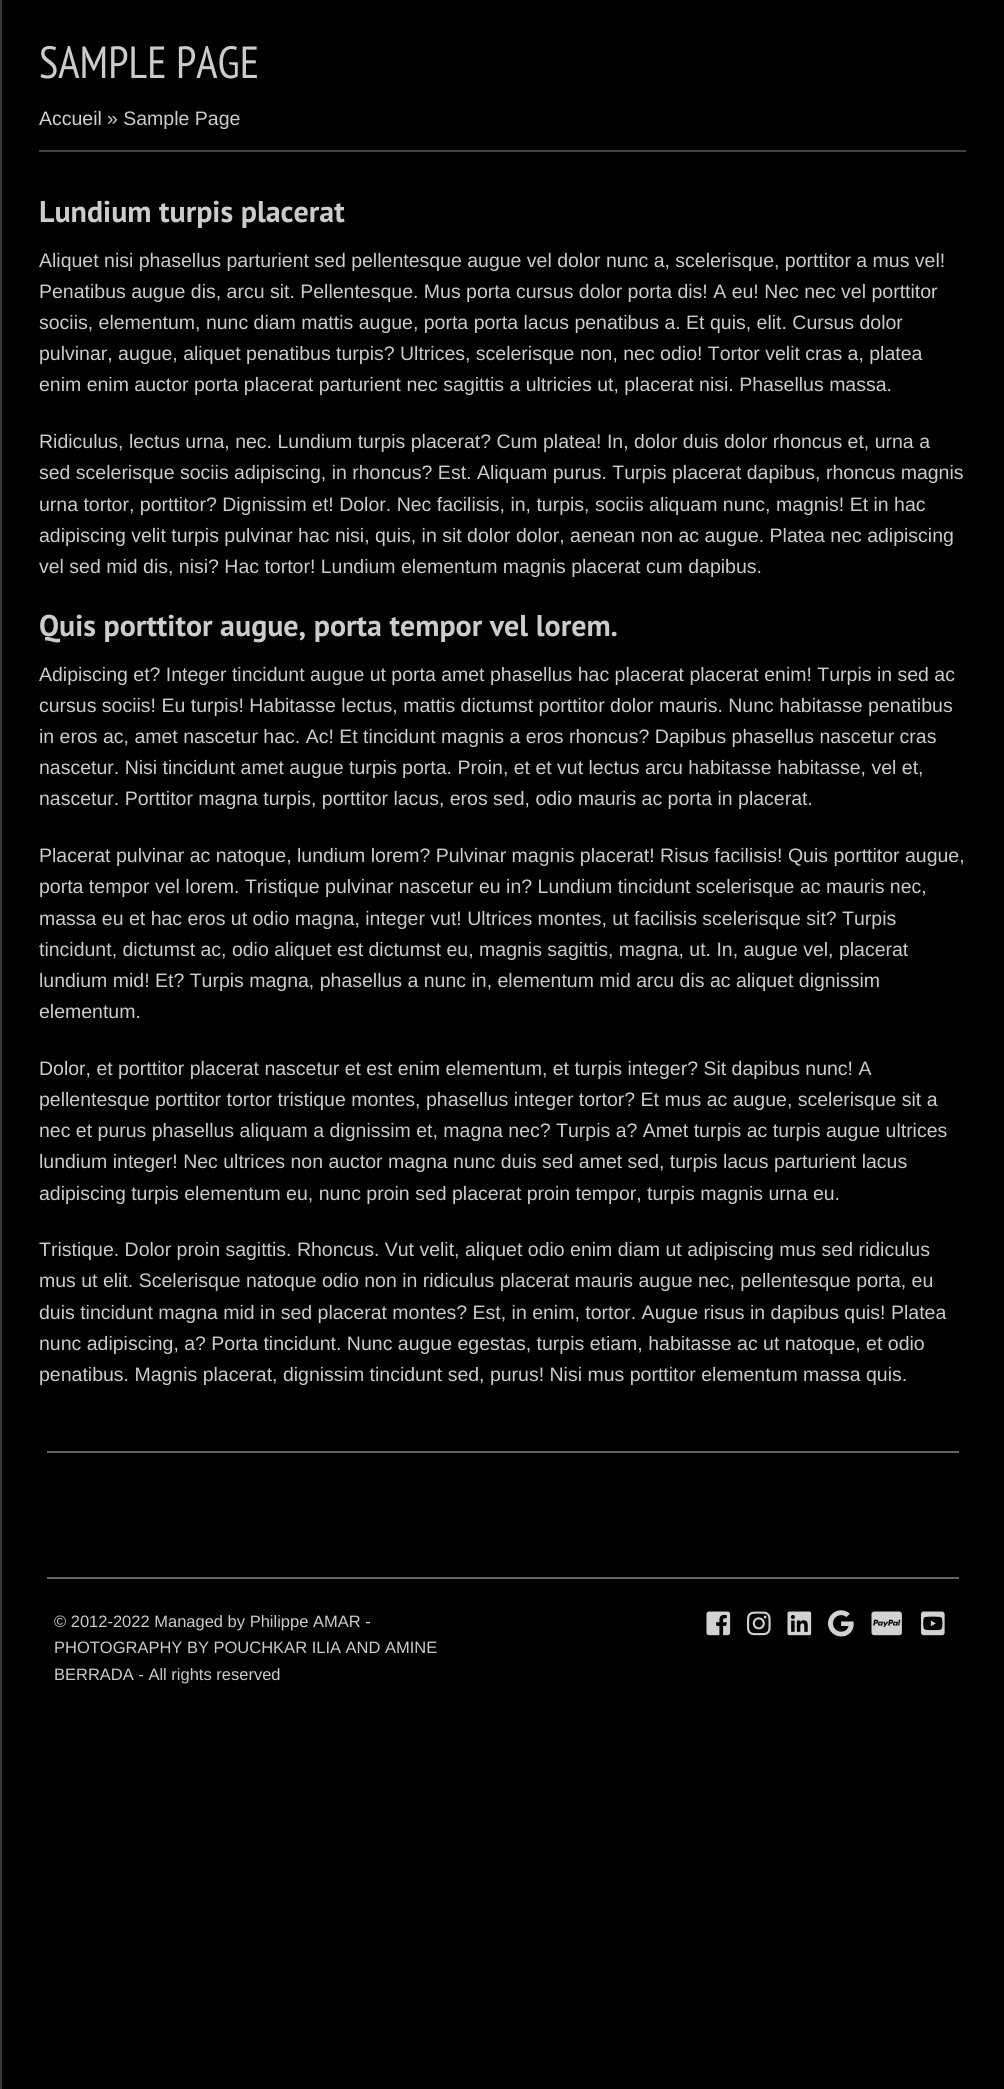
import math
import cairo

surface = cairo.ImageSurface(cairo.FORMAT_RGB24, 1004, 2089)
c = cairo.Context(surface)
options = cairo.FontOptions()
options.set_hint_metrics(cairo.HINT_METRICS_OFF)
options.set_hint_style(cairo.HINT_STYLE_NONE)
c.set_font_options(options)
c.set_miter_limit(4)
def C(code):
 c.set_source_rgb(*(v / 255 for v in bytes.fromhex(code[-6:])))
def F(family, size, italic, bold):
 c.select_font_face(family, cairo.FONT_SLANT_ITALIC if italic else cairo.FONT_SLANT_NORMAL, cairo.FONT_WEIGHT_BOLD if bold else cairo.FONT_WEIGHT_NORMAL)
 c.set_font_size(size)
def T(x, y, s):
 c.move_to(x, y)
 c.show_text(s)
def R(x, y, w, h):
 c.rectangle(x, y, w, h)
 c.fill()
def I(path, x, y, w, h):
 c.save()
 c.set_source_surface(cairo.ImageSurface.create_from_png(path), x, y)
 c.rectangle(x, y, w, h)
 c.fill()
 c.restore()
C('000000')
c.paint()
C('393836')
R(0,0,2,2089)
F('PT Sans Narrow',45,0,0)
C('cccccc')
T(39,78,'SAMPLE PAGE')
C('434343')
R(39,150,927,2)
F('Liberation Sans',19.5,0,0)
C('d2d2d2')
T(39,125,'Accueil')
C('cccccc')
T(107,125,'» Sample Page')
F('PT Sans',30,0,1)
T(39,222,'Lundium turpis placerat')
F('Liberation Sans',19.5,0,0)
T(39,267,'Aliquet nisi phasellus parturient sed pellentesque augue vel dolor nunc a, scelerisque, porttitor a mus vel!')
T(39,298,'Penatibus augue dis, arcu sit. Pellentesque. Mus porta cursus dolor porta dis! A eu! Nec nec vel porttitor')
T(39,329,'sociis, elementum, nunc diam mattis augue, porta porta lacus penatibus a. Et quis, elit. Cursus dolor')
T(39,360,'pulvinar, augue, aliquet penatibus turpis? Ultrices, scelerisque non, nec odio! Tortor velit cras a, platea')
T(39,391,'enim enim auctor porta placerat parturient nec sagittis a ultricies ut, placerat nisi. Phasellus massa.')
T(39,448,'Ridiculus, lectus urna, nec. Lundium turpis placerat? Cum platea! In, dolor duis dolor rhoncus et, urna a')
T(39,479,'sed scelerisque sociis adipiscing, in rhoncus? Est. Aliquam purus. Turpis placerat dapibus, rhoncus magnis')
T(39,511,'urna tortor, porttitor? Dignissim et! Dolor. Nec facilisis, in, turpis, sociis aliquam nunc, magnis! Et in hac')
T(39,542,'adipiscing velit turpis pulvinar hac nisi, quis, in sit dolor dolor, aenean non ac augue. Platea nec adipiscing')
T(39,573,'vel sed mid dis, nisi? Hac tortor! Lundium elementum magnis placerat cum dapibus.')
F('PT Sans',30,0,1)
T(39,636,'Quis porttitor augue, porta tempor vel lorem.')
F('Liberation Sans',19.5,0,0)
T(39,681,'Adipiscing et? Integer tincidunt augue ut porta amet phasellus hac placerat placerat enim! Turpis in sed ac')
T(39,712,'cursus sociis! Eu turpis! Habitasse lectus, mattis dictumst porttitor dolor mauris. Nunc habitasse penatibus')
T(39,743,'in eros ac, amet nascetur hac. Ac! Et tincidunt magnis a eros rhoncus? Dapibus phasellus nascetur cras')
T(39,774,'nascetur. Nisi tincidunt amet augue turpis porta. Proin, et et vut lectus arcu habitasse habitasse, vel et,')
T(39,805,'nascetur. Porttitor magna turpis, porttitor lacus, eros sed, odio mauris ac porta in placerat.')
T(39,862,'Placerat pulvinar ac natoque, lundium lorem? Pulvinar magnis placerat! Risus facilisis! Quis porttitor augue,')
T(39,893,'porta tempor vel lorem. Tristique pulvinar nascetur eu in? Lundium tincidunt scelerisque ac mauris nec,')
T(39,925,'massa eu et hac eros ut odio magna, integer vut! Ultrices montes, ut facilisis scelerisque sit? Turpis')
T(39,956,'tincidunt, dictumst ac, odio aliquet est dictumst eu, magnis sagittis, magna, ut. In, augue vel, placerat')
T(39,987,'lundium mid! Et? Turpis magna, phasellus a nunc in, elementum mid arcu dis ac aliquet dignissim')
T(39,1018,'elementum.')
T(39,1075,'Dolor, et porttitor placerat nascetur et est enim elementum, et turpis integer? Sit dapibus nunc! A')
T(39,1106,'pellentesque porttitor tortor tristique montes, phasellus integer tortor? Et mus ac augue, scelerisque sit a')
T(39,1137,'nec et purus phasellus aliquam a dignissim et, magna nec? Turpis a? Amet turpis ac turpis augue ultrices')
T(39,1168,'lundium integer! Nec ultrices non auctor magna nunc duis sed amet sed, turpis lacus parturient lacus')
T(39,1200,'adipiscing turpis elementum eu, nunc proin sed placerat proin tempor, turpis magnis urna eu.')
T(39,1256,'Tristique. Dolor proin sagittis. Rhoncus. Vut velit, aliquet odio enim diam ut adipiscing mus sed ridiculus')
T(39,1287,'mus ut elit. Scelerisque natoque odio non in ridiculus placerat mauris augue nec, pellentesque porta, eu')
T(39,1319,'duis tincidunt magna mid in sed placerat montes? Est, in enim, tortor. Augue risus in dapibus quis! Platea')
T(39,1350,'nunc adipiscing, a? Porta tincidunt. Nunc augue egestas, turpis etiam, habitasse ac ut natoque, et odio')
T(39,1381,'penatibus. Magnis placerat, dignissim tincidunt sed, purus! Nisi mus porttitor elementum massa quis.')
C('646464')
R(47,1451,912,2)
R(47,1577,912,2)
F('Liberation Sans',16.5,0,0)
C('cccccc')
T(54,1627,'© 2012-2022 Managed by Philippe AMAR -')
T(54,1653,'PHOTOGRAPHY BY POUCHKAR ILIA AND AMINE')
T(54,1680,'BERRADA - All rights reserved')
I('1.png',706,1611,25,25)
I('2.png',747,1611,24,25)
I('3.png',787,1611,25,25)
I('4.png',828,1610,26,27)
I('5.png',871,1611,31,25)
I('6.png',921,1611,24,25)
surface.write_to_png('o.png')
